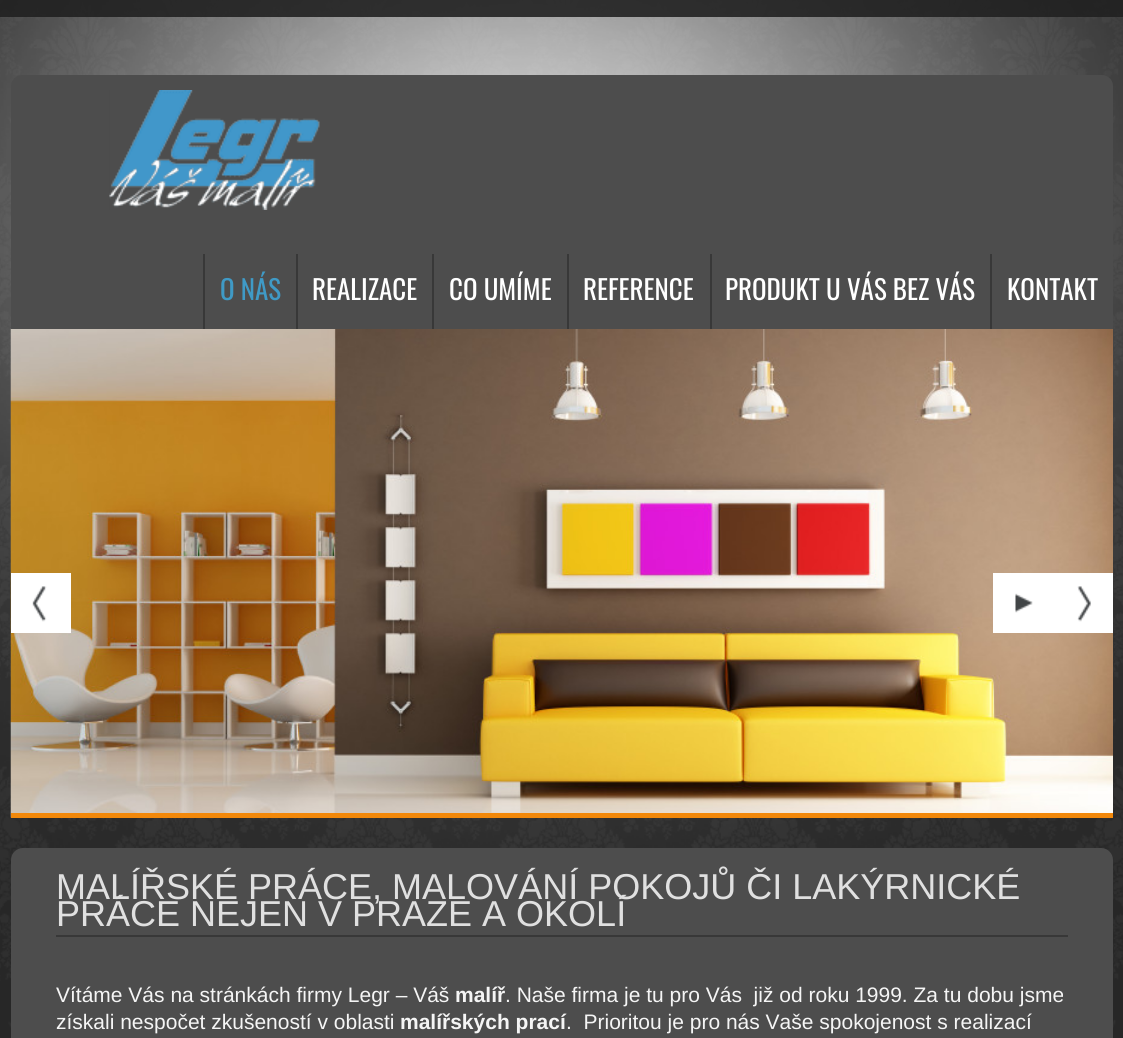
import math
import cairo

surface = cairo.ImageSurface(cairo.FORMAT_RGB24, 1123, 1038)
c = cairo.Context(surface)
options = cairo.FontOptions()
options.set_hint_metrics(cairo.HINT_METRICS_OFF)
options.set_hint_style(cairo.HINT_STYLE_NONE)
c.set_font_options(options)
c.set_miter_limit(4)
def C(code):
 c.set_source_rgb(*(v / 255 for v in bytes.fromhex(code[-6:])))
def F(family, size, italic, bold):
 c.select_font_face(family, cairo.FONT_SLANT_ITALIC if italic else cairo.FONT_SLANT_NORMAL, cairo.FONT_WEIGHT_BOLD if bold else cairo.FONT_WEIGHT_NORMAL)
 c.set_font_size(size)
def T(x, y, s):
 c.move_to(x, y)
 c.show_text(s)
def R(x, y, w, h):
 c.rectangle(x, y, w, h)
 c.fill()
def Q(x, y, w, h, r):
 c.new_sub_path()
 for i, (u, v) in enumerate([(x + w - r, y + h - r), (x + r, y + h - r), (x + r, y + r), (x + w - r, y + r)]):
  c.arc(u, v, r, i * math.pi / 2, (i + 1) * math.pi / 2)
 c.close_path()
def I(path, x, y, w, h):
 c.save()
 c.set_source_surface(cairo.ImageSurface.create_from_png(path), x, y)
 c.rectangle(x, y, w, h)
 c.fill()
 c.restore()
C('ffffff')
c.paint()
I('1.png',0,0,1123,1038)
I('2.png',0,0,1123,848)
c.set_source_rgba(0.122,0.122,0.122,0.88)
R(0,0,1123,17)
I('4.png',10,328,1103,490)
C('4d4d4d')
c.new_path()
c.move_to(22,75)
c.line_to(1102,75)
c.curve_to(1108,75,1113,80,1113,86)
c.line_to(1113,329)
c.line_to(11,329)
c.line_to(11,86)
c.curve_to(11,80,16,75,22,75)
c.close_path()
c.fill()
I('3.png',109,90,211,120)
C('383838')
R(203,254,2,75)
F('Oswald',27,0,0)
C('3f9ac6')
T(220,300,'O NÁS')
C('383838')
R(296,254,2,75)
C('ffffff')
T(312,300,'REALIZACE')
C('383838')
R(432,254,2,75)
C('ffffff')
T(449,300,'CO UMÍME')
C('383838')
R(567,254,2,75)
C('ffffff')
T(583,300,'REFERENCE')
C('383838')
R(710,254,2,75)
C('ffffff')
T(725,300,'PRODUKT U VÁS BEZ VÁS')
C('383838')
R(990,254,2,75)
C('ffffff')
T(1007,300,'KONTAKT')
R(11,573,60,60)
I('5.png',32,586,15,36)
R(993,573,120,60)
I('6.png',1015,593,18,20)
I('7.png',1077,586,14,36)
C('f2880a')
R(11,813,1102,5)
C('4d4d4d')
Q(11,848,1102,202,12)
c.fill()
C('383838')
R(56,935,1012,2)
F('Liberation Sans',36,0,0)
C('e0e0e0')
T(56,899,'MALÍŘSKÉ PRÁCE, MALOVÁNÍ POKOJŮ ČI LAKÝRNICKÉ')
T(56,926,'PRÁCE NEJEN V PRAZE A OKOLÍ')
F('Liberation Sans',21,0,0)
C('f5f5f5')
T(56,1002,'Vítáme Vás na stránkách firmy Legr – Váš')
F('Liberation Sans',21,0,1)
T(455,1002,'malíř')
F('Liberation Sans',21,0,0)
T(505,1002,'. Naše firma je tu pro Vás  již od roku 1999. Za tu dobu jsme')
T(56,1029,'získali nespočet zkušeností v oblasti')
F('Liberation Sans',21,0,1)
T(400,1029,'malířských prací')
F('Liberation Sans',21,0,0)
T(566,1029,'.  Prioritou je pro nás Vaše spokojenost s realizací')
surface.write_to_png('o.png')
